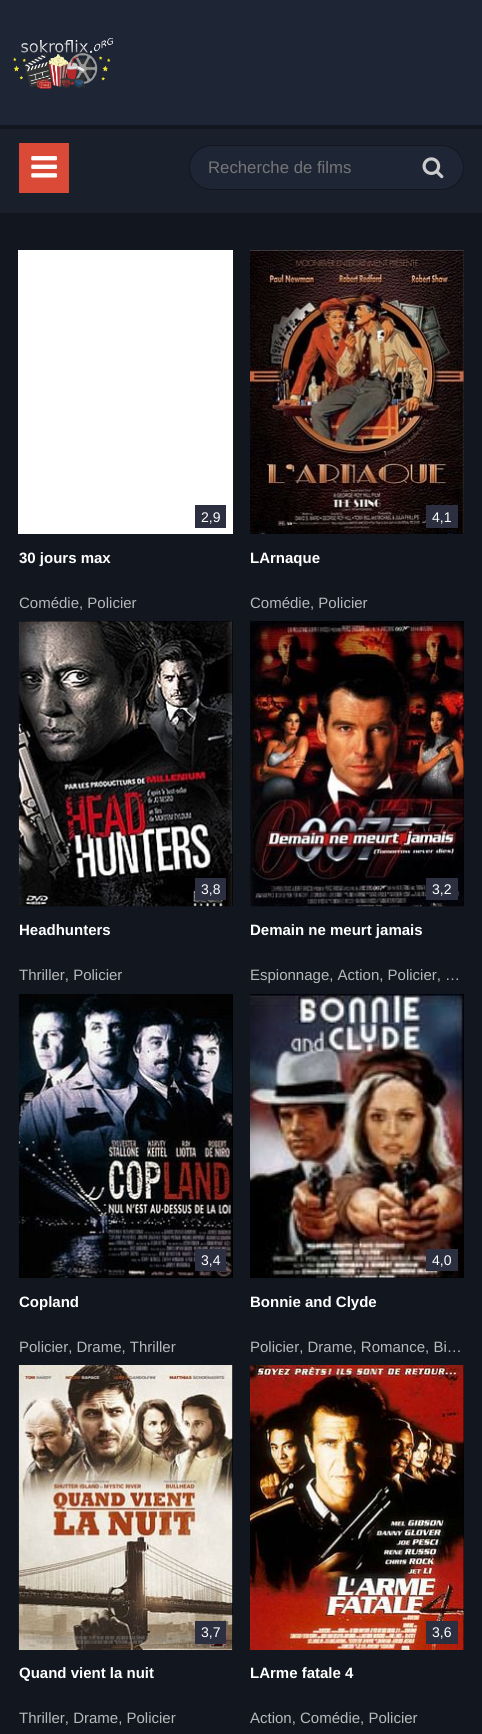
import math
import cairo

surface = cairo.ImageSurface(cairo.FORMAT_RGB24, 482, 1734)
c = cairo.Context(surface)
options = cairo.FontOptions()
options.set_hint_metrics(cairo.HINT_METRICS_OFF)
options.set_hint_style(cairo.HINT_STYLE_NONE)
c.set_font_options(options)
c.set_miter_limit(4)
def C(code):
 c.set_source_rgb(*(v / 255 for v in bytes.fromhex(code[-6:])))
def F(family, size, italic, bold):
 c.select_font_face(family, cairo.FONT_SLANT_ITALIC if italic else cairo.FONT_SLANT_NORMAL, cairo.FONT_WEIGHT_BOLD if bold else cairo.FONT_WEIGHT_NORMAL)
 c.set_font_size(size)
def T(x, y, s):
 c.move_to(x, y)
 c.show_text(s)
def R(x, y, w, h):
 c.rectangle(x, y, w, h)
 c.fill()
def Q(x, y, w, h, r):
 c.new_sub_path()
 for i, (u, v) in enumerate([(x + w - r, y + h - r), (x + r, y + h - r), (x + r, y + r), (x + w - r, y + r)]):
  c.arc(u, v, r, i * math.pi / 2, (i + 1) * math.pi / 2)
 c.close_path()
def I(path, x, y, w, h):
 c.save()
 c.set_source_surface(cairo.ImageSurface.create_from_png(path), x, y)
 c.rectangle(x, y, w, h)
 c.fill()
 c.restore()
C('12161f')
c.paint()
C('1e2535')
R(0,0,482,125)
I('1.png',13,38,100,51)
C('191f2b')
R(0,129,482,84)
C('db4a37')
R(19,143,50,50)
I('2.png',31,156,26,22)
C('1e2535')
Q(189.5,145.5,274,44,22)
c.fill_preserve()
C('12161f')
c.set_line_width(1)
c.stroke()
F('Liberation Sans',16.75,0,0)
C('757575')
T(208,173,'Recherche de films')
I('3.png',422,157,22,22)
C('ffffff')
R(18,250,215,284)
C('2c2f40')
R(195,505,31,23)
F('Liberation Sans',14,0,0)
C('ffffff')
T(201,522,'2,9')
F('Liberation Sans',15,0,1)
T(19,563,'30 jours max')
F('Liberation Sans',15,0,0)
C('b8b9bc')
T(19,608,'Comédie, Policier')
C('000000')
R(250,250,214,284)
I('4.png',250,250,214,284)
C('2c2f40')
R(426,505,32,23)
F('Liberation Sans',14,0,0)
C('ffffff')
T(432,522,'4,1')
F('Liberation Sans',15,0,1)
T(250,563,'LArnaque')
F('Liberation Sans',15,0,0)
C('b8b9bc')
T(250,608,'Comédie, Policier')
C('000000')
R(19,621,214,285)
I('5.png',18,621,215,286)
C('2c2f40')
R(195,878,31,22)
F('Liberation Sans',14,0,0)
C('ffffff')
T(201,894,'3,8')
F('Liberation Sans',15,0,1)
T(19,935,'Headhunters')
F('Liberation Sans',15,0,0)
C('b8b9bc')
T(19,980,'Thriller, Policier')
C('000000')
R(250,621,214,285)
I('6.png',250,621,214,286)
C('2c2f40')
R(426,878,32,22)
F('Liberation Sans',14,0,0)
C('ffffff')
T(432,894,'3,2')
F('Liberation Sans',15,0,1)
T(250,935,'Demain ne meurt jamais')
F('Liberation Sans',15,0,0)
C('b8b9bc')
T(250,980,'Espionnage, Action, Policier, …')
C('000000')
R(19,994,214,284)
I('7.png',18,994,215,284)
C('2c2f40')
R(195,1249,31,22)
F('Liberation Sans',14,0,0)
C('ffffff')
T(201,1265,'3,4')
F('Liberation Sans',15,0,1)
T(19,1307,'Copland')
F('Liberation Sans',15,0,0)
C('b8b9bc')
T(19,1352,'Policier, Drame, Thriller')
C('000000')
R(250,994,214,284)
I('8.png',250,994,214,284)
C('2c2f40')
R(426,1249,32,22)
F('Liberation Sans',14,0,0)
C('ffffff')
T(432,1265,'4,0')
F('Liberation Sans',15,0,1)
T(250,1307,'Bonnie and Clyde')
F('Liberation Sans',15,0,0)
C('b8b9bc')
T(250,1352,'Policier, Drame, Romance, Bi…')
C('000000')
R(232,1365,1,285)
I('9.png',18,1365,215,285)
C('2c2f40')
R(195,1621,31,23)
F('Liberation Sans',14,0,0)
C('ffffff')
T(201,1637,'3,7')
F('Liberation Sans',15,0,1)
T(19,1678,'Quand vient la nuit')
F('Liberation Sans',15,0,0)
C('b8b9bc')
T(19,1723,'Thriller, Drame, Policier')
C('000000')
R(463,1365,1,285)
I('10.png',250,1365,214,285)
C('2c2f40')
R(426,1621,32,23)
F('Liberation Sans',14,0,0)
C('ffffff')
T(432,1637,'3,6')
F('Liberation Sans',15,0,1)
T(250,1678,'LArme fatale 4')
F('Liberation Sans',15,0,0)
C('b8b9bc')
T(250,1723,'Action, Comédie, Policier')
surface.write_to_png('o.png')
